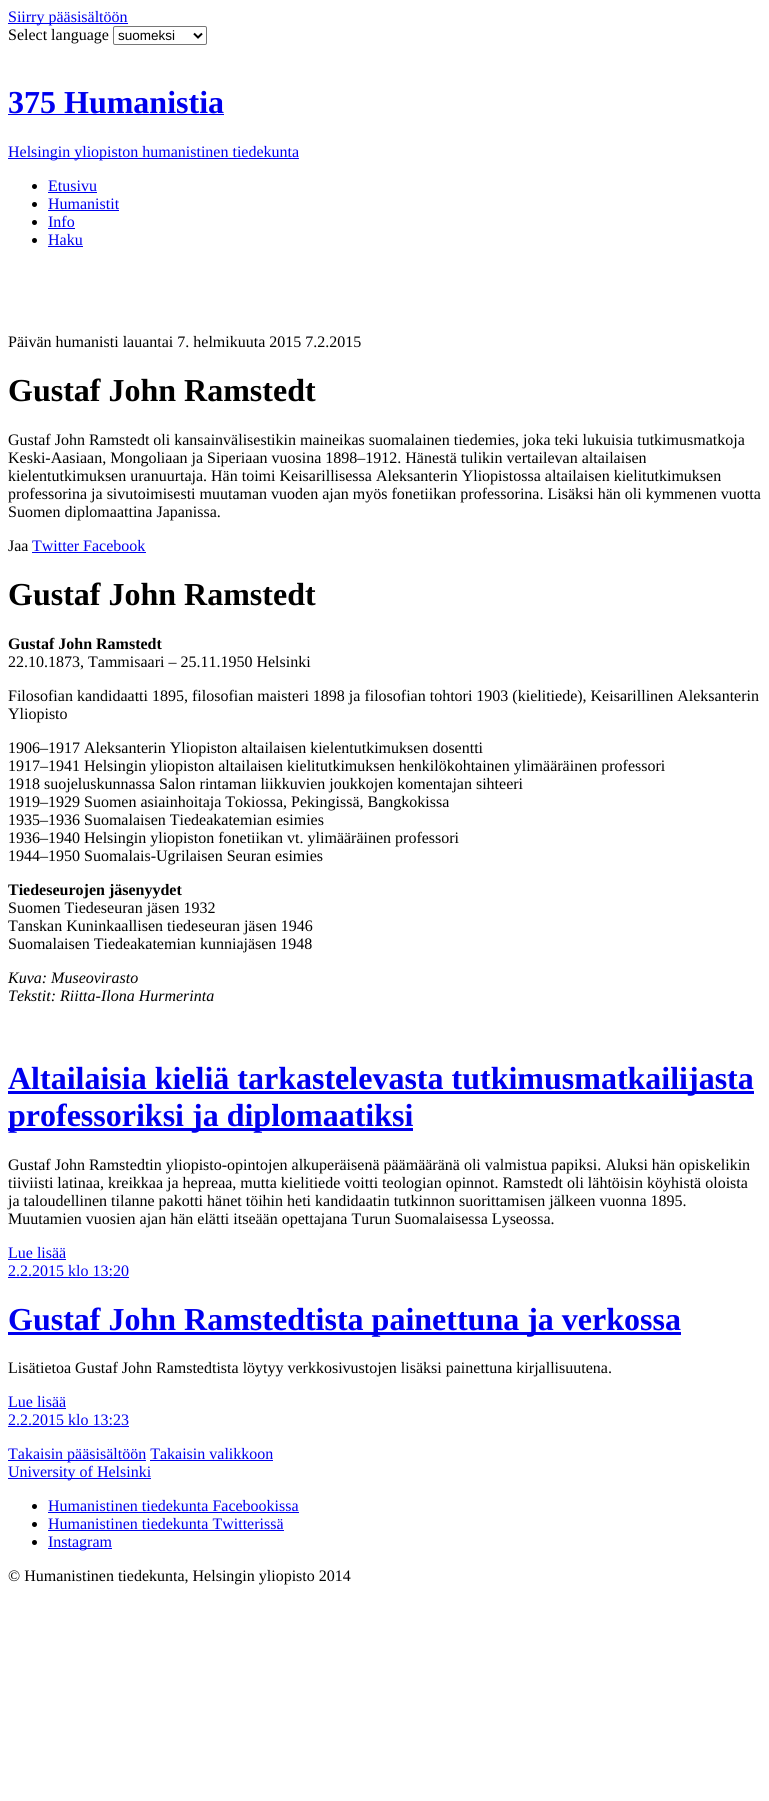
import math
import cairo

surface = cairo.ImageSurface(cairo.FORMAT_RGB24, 769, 1801)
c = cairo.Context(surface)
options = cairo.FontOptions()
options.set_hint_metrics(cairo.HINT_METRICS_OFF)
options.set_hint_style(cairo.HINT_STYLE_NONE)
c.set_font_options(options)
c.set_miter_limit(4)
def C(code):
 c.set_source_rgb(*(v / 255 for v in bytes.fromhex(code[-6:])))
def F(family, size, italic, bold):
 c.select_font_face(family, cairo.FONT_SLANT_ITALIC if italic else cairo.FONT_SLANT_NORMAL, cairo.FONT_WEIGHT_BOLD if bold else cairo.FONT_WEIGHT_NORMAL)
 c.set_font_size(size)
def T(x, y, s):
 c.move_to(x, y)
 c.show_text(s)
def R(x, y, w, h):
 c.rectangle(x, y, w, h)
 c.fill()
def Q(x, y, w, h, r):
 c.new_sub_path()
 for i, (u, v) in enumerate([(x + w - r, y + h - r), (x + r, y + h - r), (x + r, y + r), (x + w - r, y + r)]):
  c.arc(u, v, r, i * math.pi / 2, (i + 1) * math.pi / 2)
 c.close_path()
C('ffffff')
c.paint()
C('0000ee')
R(8,23,120,1)
F('Liberation Serif',16,0,0)
T(8,22,'Siirry pääsisältöön')
C('000000')
T(8,40,'Select language')
Q(113.5,26.5,93,18,1.5)
C('767676')
c.set_line_width(1)
c.stroke()
c.new_path()
c.move_to(194,33.5)
c.line_to(198,37.5)
c.line_to(202,33.5)
C('000000')
c.set_line_width(2)
c.stroke()
F('Liberation Sans',13.5,0,0)
T(118,40,'suomeksi')
F('Liberation Serif',32,0,1)
C('0000ee')
T(8,113,'375 Humanistia')
R(8,114,216,1)
R(8,158,291,1)
F('Liberation Serif',16,0,0)
T(8,157,'Helsingin yliopiston humanistinen tiedekunta')
C('000000')
c.new_path()
c.arc(34.5,186.5,2.5,0,2 * math.pi)
c.fill()
C('0000ee')
T(48,191,'Etusivu')
R(48,192,49,1)
C('000000')
c.new_path()
c.arc(34.5,204.5,2.5,0,2 * math.pi)
c.fill()
C('0000ee')
T(48,209,'Humanistit')
R(48,210,71,1)
C('000000')
c.new_path()
c.arc(34.5,222.5,2.5,0,2 * math.pi)
c.fill()
C('0000ee')
T(48,227,'Info')
R(48,228,27,1)
C('000000')
c.new_path()
c.arc(34.5,240.5,2.5,0,2 * math.pi)
c.fill()
C('0000ee')
T(48,245,'Haku')
R(48,246,35,1)
C('000000')
T(8,347,'Päivän humanisti lauantai 7. helmikuuta 2015 7.2.2015')
F('Liberation Serif',32,0,1)
T(8,401,'Gustaf John Ramstedt')
F('Liberation Serif',16,0,0)
T(8,445,'Gustaf John Ramstedt oli kansainvälisestikin maineikas suomalainen tiedemies, joka teki lukuisia tutkimusmatkoja')
T(8,463,'Keski-Aasiaan, Mongoliaan ja Siperiaan vuosina 1898–1912. Hänestä tulikin vertailevan altailaisen')
T(8,481,'kielentutkimuksen uranuurtaja. Hän toimi Keisarillisessa Aleksanterin Yliopistossa altailaisen kielitutkimuksen')
T(8,499,'professorina ja sivutoimisesti muutaman vuoden ajan myös fonetiikan professorina. Lisäksi hän oli kymmenen vuotta')
T(8,517,'Suomen diplomaattina Japanissa.')
T(8,551,'Jaa')
C('0000ee')
T(32,551,'Twitter Facebook')
R(32,552,114,1)
F('Liberation Serif',32,0,1)
C('000000')
T(8,605,'Gustaf John Ramstedt')
F('Liberation Serif',16,0,1)
T(8,649,'Gustaf John Ramstedt')
F('Liberation Serif',16,0,0)
T(8,667,'22.10.1873, Tammisaari – 25.11.1950 Helsinki')
T(8,701,'Filosofian kandidaatti 1895, filosofian maisteri 1898 ja filosofian tohtori 1903 (kielitiede), Keisarillinen Aleksanterin')
T(8,719,'Yliopisto')
T(8,753,'1906–1917 Aleksanterin Yliopiston altailaisen kielentutkimuksen dosentti')
T(8,771,'1917–1941 Helsingin yliopiston altailaisen kielitutkimuksen henkilökohtainen ylimääräinen professori')
T(8,789,'1918 suojeluskunnassa Salon rintaman liikkuvien joukkojen komentajan sihteeri')
T(8,807,'1919–1929 Suomen asiainhoitaja Tokiossa, Pekingissä, Bangkokissa')
T(8,825,'1935–1936 Suomalaisen Tiedeakatemian esimies')
T(8,843,'1936–1940 Helsingin yliopiston fonetiikan vt. ylimääräinen professori')
T(8,861,'1944–1950 Suomalais-Ugrilaisen Seuran esimies')
F('Liberation Serif',16,0,1)
T(8,895,'Tiedeseurojen jäsenyydet')
F('Liberation Serif',16,0,0)
T(8,913,'Suomen Tiedeseuran jäsen 1932')
T(8,931,'Tanskan Kuninkaallisen tiedeseuran jäsen 1946')
T(8,949,'Suomalaisen Tiedeakatemian kunniajäsen 1948')
F('Liberation Serif',16,1,0)
T(8,983,'Kuva: Museovirasto')
T(8,1001,'Tekstit: Riitta-Ilona Hurmerinta')
C('0000ee')
R(8,1091,746,3)
F('Liberation Serif',32,0,1)
T(8,1089,'Altailaisia kieliä tarkastelevasta tutkimusmatkailijasta')
R(8,1128,405,3)
T(8,1126,'professoriksi ja diplomaatiksi')
F('Liberation Serif',16,0,0)
C('000000')
T(8,1170,'Gustaf John Ramstedtin yliopisto-opintojen alkuperäisenä päämääränä oli valmistua papiksi. Aluksi hän opiskelikin')
T(8,1188,'tiiviisti latinaa, kreikkaa ja hepreaa, mutta kielitiede voitti teologian opinnot. Ramstedt oli lähtöisin köyhistä oloista')
T(8,1206,'ja taloudellinen tilanne pakotti hänet töihin heti kandidaatin tutkinnon suorittamisen jälkeen vuonna 1895.')
T(8,1224,'Muutamien vuosien ajan hän elätti itseään opettajana Turun Suomalaisessa Lyseossa.')
C('0000ee')
T(8,1258,'Lue lisää')
R(8,1259,58,1)
T(8,1276,'2.2.2015 klo 13:20')
R(8,1277,121,1)
R(8,1332,673,3)
F('Liberation Serif',32,0,1)
T(8,1330,'Gustaf John Ramstedtista painettuna ja verkossa')
F('Liberation Serif',16,0,0)
C('000000')
T(8,1373,'Lisätietoa Gustaf John Ramstedtista löytyy verkkosivustojen lisäksi painettuna kirjallisuutena.')
C('0000ee')
T(8,1407,'Lue lisää')
R(8,1408,58,1)
T(8,1425,'2.2.2015 klo 13:23')
R(8,1426,121,1)
R(8,1460,138,1)
T(8,1459,'Takaisin pääsisältöön Takaisin valikkoon')
R(150,1460,123,1)
R(8,1478,143,1)
T(8,1477,'University of Helsinki')
C('000000')
c.new_path()
c.arc(34.5,1506.5,2.5,0,2 * math.pi)
c.fill()
C('0000ee')
T(48,1511,'Humanistinen tiedekunta Facebookissa')
R(48,1512,251,1)
C('000000')
c.new_path()
c.arc(34.5,1524.5,2.5,0,2 * math.pi)
c.fill()
C('0000ee')
T(48,1529,'Humanistinen tiedekunta Twitterissä')
R(48,1530,236,1)
C('000000')
c.new_path()
c.arc(34.5,1542.5,2.5,0,2 * math.pi)
c.fill()
C('0000ee')
R(48,1548,64,1)
T(48,1547,'Instagram')
C('000000')
T(8,1581,'© Humanistinen tiedekunta, Helsingin yliopisto 2014')
surface.write_to_png('o.png')
